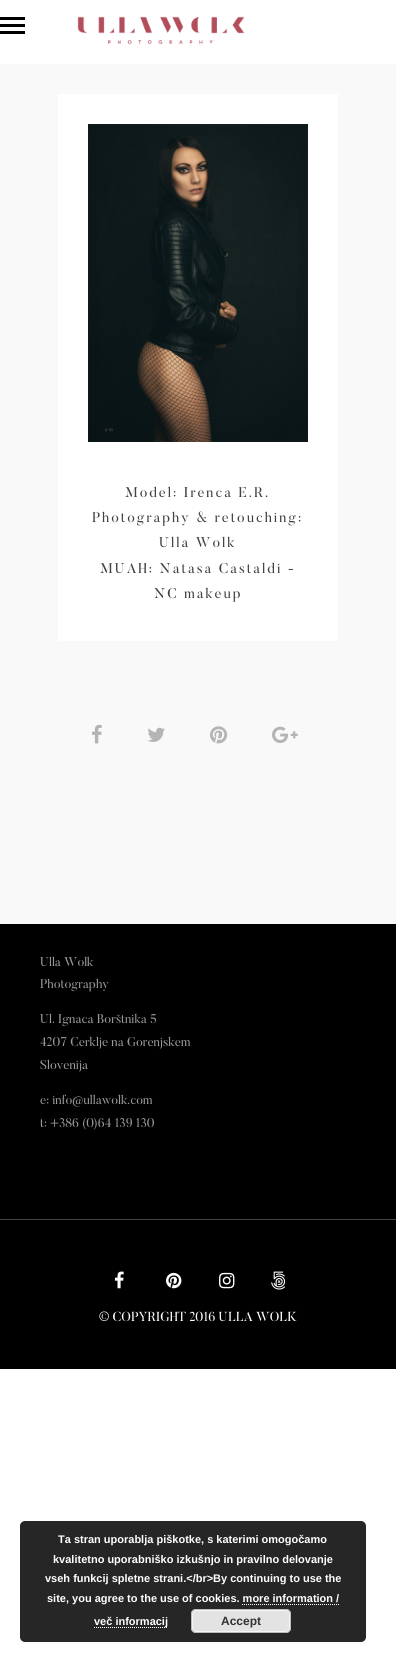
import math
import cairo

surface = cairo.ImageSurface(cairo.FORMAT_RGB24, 396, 1672)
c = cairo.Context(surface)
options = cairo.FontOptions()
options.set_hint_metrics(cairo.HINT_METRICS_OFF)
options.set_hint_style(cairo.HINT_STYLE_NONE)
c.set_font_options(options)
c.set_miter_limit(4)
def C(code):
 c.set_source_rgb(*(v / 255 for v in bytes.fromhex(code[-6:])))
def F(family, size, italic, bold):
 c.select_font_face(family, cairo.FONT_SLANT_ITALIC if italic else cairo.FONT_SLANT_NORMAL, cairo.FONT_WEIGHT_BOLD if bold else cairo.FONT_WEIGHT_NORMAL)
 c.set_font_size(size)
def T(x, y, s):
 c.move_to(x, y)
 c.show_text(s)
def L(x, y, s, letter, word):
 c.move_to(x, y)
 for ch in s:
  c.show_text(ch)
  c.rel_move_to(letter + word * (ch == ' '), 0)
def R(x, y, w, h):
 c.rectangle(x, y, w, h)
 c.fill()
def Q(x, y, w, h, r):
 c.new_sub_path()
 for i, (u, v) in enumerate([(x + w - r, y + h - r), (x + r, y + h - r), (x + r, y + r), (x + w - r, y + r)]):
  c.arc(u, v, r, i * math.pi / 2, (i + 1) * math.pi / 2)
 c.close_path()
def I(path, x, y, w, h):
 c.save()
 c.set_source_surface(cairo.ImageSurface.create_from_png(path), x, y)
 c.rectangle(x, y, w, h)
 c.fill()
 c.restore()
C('ffffff')
c.paint()
C('000000')
R(0,17,25,3)
R(0,24,25,3)
R(0,31,25,3)
I('1.png',77,16,168,29)
C('f9f9f9')
R(0,64,396,860)
C('ffffff')
R(58,94,280,547)
I('2.png',88,124,220,318)
F('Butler',14,0,0)
C('404041')
L(125,497,'Model: Irenca E.R.',2,0)
L(92,522,'Photography & retouching:',2,0)
L(159,547,'Ulla Wolk',2,0)
L(100,573,'MUAH: Natasa Castaldi -',2,0)
L(154,598,'NC makeup',2,0)
I('3.png',92,724,10,20)
I('4.png',147,727,18,15)
I('5.png',210,726,18,18)
I('6.png',272,726,26,17)
C('000000')
R(0,924,396,445)
F('Butler',12.6,0,0)
C('999999')
T(40,966,'Ulla Wolk')
T(40,988,'Photography')
T(40,1023,'Ul. Ignaca Borštnika 5')
T(40,1046,'4207 Cerklje na Gorenjskem')
T(40,1069,'Slovenija')
T(40,1104,'e: info@ullawolk.com')
T(40,1127,'t: +386 (0)64 139 130')
C('444444')
R(0,1219,396,1)
I('7.png',114,1271,10,18)
I('8.png',166,1272,16,17)
I('9.png',219,1272,16,17)
I('10.png',271,1271,15,19)
F('Butler',13,0,0)
C('ffffff')
T(99,1321,'© COPYRIGHT 2016 ULLA WOLK')
C('262626')
Q(20,1521,346,121,5)
c.fill()
F('Liberation Sans',11,0,1)
C('ffffff')
T(58,1543,'Ta stran uporablja piškotke, s katerimi omogočamo')
T(53,1563,'kvalitetno uporabniško izkušnjo in pravilno delovanje')
T(45,1582,'vseh funkcij spletne strani.</br>By continuing to use the')
T(47,1602,'site, you agree to the use of cookies. more information /')
c.new_path()
c.move_to(94,1627.5)
c.line_to(168,1627.5)
c.set_line_width(1)
c.set_dash([1,1])
c.stroke()
T(94,1625,'več informacij')
c.new_path()
c.move_to(242,1604.5)
c.line_to(339,1604.5)
c.stroke()
C('e3e3e3')
Q(191,1609,100,24,5)
c.fill()
Q(192.5,1610.5,97,21,3.5)
C('f6f6f6')
c.set_dash([])
c.stroke()
Q(191.5,1609.5,99,23,4.5)
C('bbbbbb')
c.stroke()
F('Liberation Sans',12,0,1)
C('333333')
T(221,1625,'Accept')
surface.write_to_png('o.png')
